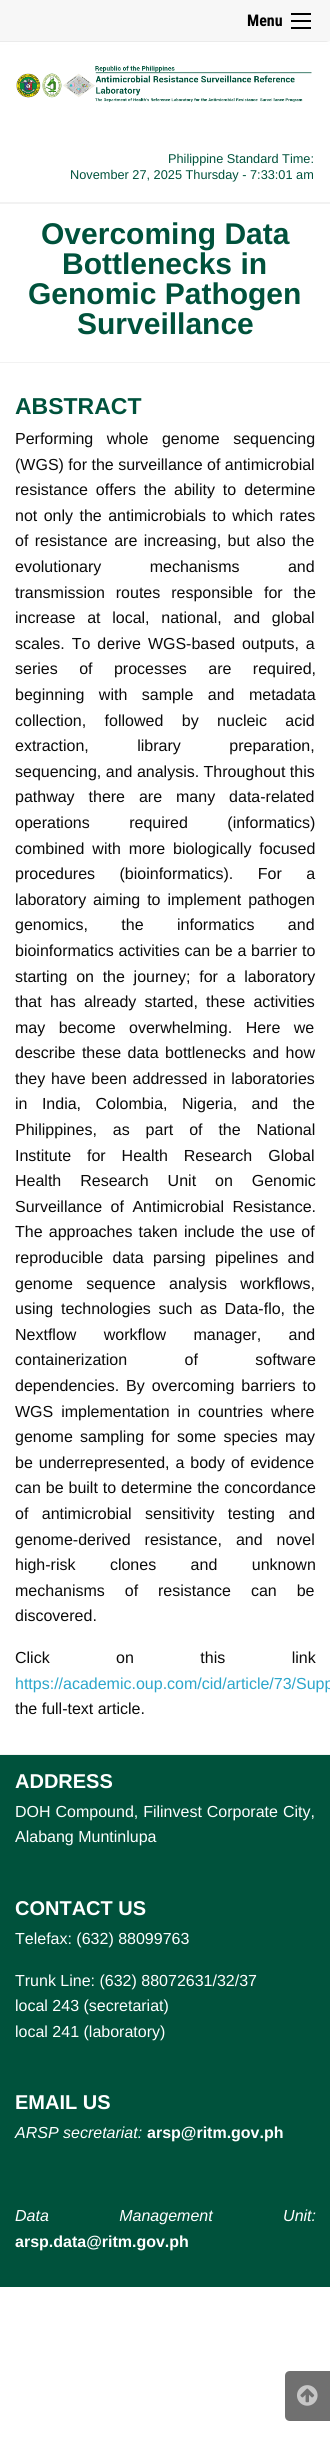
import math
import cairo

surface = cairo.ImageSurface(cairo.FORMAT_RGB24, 330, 2445)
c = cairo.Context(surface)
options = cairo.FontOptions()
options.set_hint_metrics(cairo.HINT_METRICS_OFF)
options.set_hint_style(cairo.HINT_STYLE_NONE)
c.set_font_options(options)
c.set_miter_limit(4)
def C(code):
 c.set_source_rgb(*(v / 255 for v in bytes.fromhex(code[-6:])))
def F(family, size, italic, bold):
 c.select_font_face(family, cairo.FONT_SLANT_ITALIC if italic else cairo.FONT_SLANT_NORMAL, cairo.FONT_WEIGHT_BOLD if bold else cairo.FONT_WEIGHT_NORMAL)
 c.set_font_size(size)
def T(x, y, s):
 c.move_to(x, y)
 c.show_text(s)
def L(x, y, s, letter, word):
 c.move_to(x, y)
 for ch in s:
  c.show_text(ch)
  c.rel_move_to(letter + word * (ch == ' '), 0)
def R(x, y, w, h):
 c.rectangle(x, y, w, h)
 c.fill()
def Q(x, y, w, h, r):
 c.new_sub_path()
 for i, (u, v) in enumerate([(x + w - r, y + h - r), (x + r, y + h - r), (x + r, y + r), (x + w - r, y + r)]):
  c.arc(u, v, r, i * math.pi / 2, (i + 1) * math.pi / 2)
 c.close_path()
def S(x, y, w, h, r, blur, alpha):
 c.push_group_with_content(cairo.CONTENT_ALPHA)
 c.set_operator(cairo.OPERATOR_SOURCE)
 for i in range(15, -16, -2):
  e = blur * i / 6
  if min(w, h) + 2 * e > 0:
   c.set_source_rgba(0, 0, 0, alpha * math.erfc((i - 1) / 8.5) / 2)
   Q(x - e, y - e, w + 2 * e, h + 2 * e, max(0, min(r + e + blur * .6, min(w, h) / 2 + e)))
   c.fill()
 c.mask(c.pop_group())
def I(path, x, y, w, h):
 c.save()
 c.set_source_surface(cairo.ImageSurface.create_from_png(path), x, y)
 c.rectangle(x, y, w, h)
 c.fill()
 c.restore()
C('ffffff')
c.paint()
C('000000')
S(-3,0,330,41,0,2,.2)
C('f7f7f7')
R(0,0,330,41)
F('Roboto Condensed',16,0,1)
C('000000')
T(247,26,'Menu')
R(291,27,20,2)
R(291,20,20,2)
R(291,13,20,2)
C('ffffff')
R(0,42,329,2)
C('f2f2f2')
R(0,202,330,2)
I('1.png',16,65,296,37)
F('Liberation Sans',12.75,0,0)
C('00523c')
T(168,163,'Philippine Standard Time:')
T(70,179,'November 27, 2025 Thursday - 7:33:01 am')
C('f2f2f2')
R(0,362,330,1)
F('Liberation Sans',30,0,1)
C('00523c')
T(41,244,'Overcoming Data')
T(62,274,'Bottlenecks in')
T(28,304,'Genomic Pathogen')
T(77,334,'Surveillance')
F('Liberation Sans',23,0,1)
T(15,414,'ABSTRACT')
F('Liberation Sans',16,0,0)
C('0a0a0a')
L(15,444,'Performing whole genome sequencing',0,9)
T(15,470,'(WGS) for the surveillance of antimicrobial')
L(15,495,'resistance offers the ability to determine',0,3.5)
L(15,521,'not only the antimicrobials to which rates',0,2)
L(15,546,'of resistance are increasing, but also the',0,2)
L(15,572,'evolutionary mechanisms and',0,44)
L(15,598,'transmission routes responsible for the',0,6.5)
L(15,623,'increase at local, national, and global',0,7.25)
L(15,649,'scales. To derive WGS-based outputs, a',0,2.5)
L(15,674,'series of processes are required,',0,17)
L(15,700,'beginning with sample and metadata',0,10)
L(15,726,'collection, followed by nucleic acid',0,14)
L(15,751,'extraction, library preparation,',0,44)
T(15,777,'sequencing, and analysis. Throughout this')
L(15,802,'pathway there are many data-related',0,9.5)
L(15,828,'operations required (informatics)',0,35)
L(15,854,'combined with more biologically focused',0,3.5)
L(15,879,'procedures (bioinformatics). For a',0,20)
L(15,905,'laboratory aiming to implement pathogen',0,2.5)
L(15,930,'genomics, the informatics and',0,29)
L(15,956,'bioinformatics activities can be a barrier to',0,.25)
L(15,982,'starting on the journey; for a laboratory',0,4.25)
L(15,1007,'that has already started, these activities',0,3.75)
L(15,1033,'may become overwhelming. Here we',0,9)
L(15,1058,'describe these data bottlenecks and how',0,2)
L(15,1084,'they have been addressed in laboratories',0,1.25)
L(15,1109,'in India, Colombia, Nigeria, and the',0,10)
L(15,1135,'Philippines, as part of the National',0,11.5)
L(15,1161,'Institute for Health Research Global',0,11.5)
L(15,1186,'Health Research Unit on Genomic',0,14.5)
L(15,1212,'Surveillance of Antimicrobial Resistance.',0,4)
L(15,1237,'The approaches taken include the use of',0,1.75)
L(15,1263,'reproducible data parsing pipelines and',0,5)
L(15,1289,'genome sequence analysis workflows,',0,9)
L(15,1314,'using technologies such as Data-flo, the',0,3.25)
L(15,1340,'Nextflow workflow manager, and',0,23)
L(15,1365,'containerization of software',0,53)
L(15,1391,'dependencies. By overcoming barriers to',0,2.5)
L(15,1417,'WGS implementation in countries where',0,3.5)
L(15,1442,'genome sampling for some species may',0,2.75)
L(15,1468,'be underrepresented, a body of evidence',0,1.5)
L(15,1493,'can be built to determine the concordance',0,.5)
L(15,1519,'of antimicrobial sensitivity testing and',0,9)
L(15,1545,'genome-derived resistance, and novel',0,9.5)
L(15,1570,'high-risk clones and unknown',0,30)
L(15,1596,'mechanisms of resistance can be',0,15.5)
T(15,1621,'discovered.')
L(15,1663,'Click on this link',0,62)
C('2ba6cb')
T(15,1689,'https://academic.oup.com/cid/article/73/Supp')
C('0a0a0a')
T(15,1714,'the full-text article.')
C('00523c')
R(0,1755,330,532)
C('f2f2f2')
R(0,1754,330,1)
F('Liberation Sans',20,0,1)
C('ffffff')
T(15,1788,'ADDRESS')
F('Liberation Sans',16,0,0)
L(15,1817,'DOH Compound, Filinvest Corporate City,',0,.5)
T(15,1842,'Alabang Muntinlupa')
F('Liberation Sans',20,0,1)
T(15,1915,'CONTACT US')
F('Liberation Sans',16,0,0)
T(15,1944,'Telefax: (632) 88099763')
T(15,1986,'Trunk Line: (632) 88072631/32/37')
T(15,2011,'local 243 (secretariat)')
T(15,2037,'local 241 (laboratory)')
F('Liberation Sans',20,0,1)
T(15,2109,'EMAIL US')
F('Liberation Sans',16,1,0)
T(15,2138,'ARSP secretariat:')
F('Liberation Sans',16,0,1)
T(147,2138,'arsp@ritm.gov.ph')
F('Liberation Sans',16,1,0)
L(15,2221,'Data Management Unit:',0,66)
F('Liberation Sans',16,0,1)
T(15,2247,'arsp.data@ritm.gov.ph')
C('707070')
c.new_path()
c.move_to(290,2371)
c.line_to(330,2371)
c.line_to(330,2421)
c.line_to(290,2421)
c.curve_to(287,2421,285,2419,285,2416)
c.line_to(285,2376)
c.curve_to(285,2373,287,2371,290,2371)
c.close_path()
c.fill()
I('2.png',297,2385,21,21)
surface.write_to_png('o.png')
